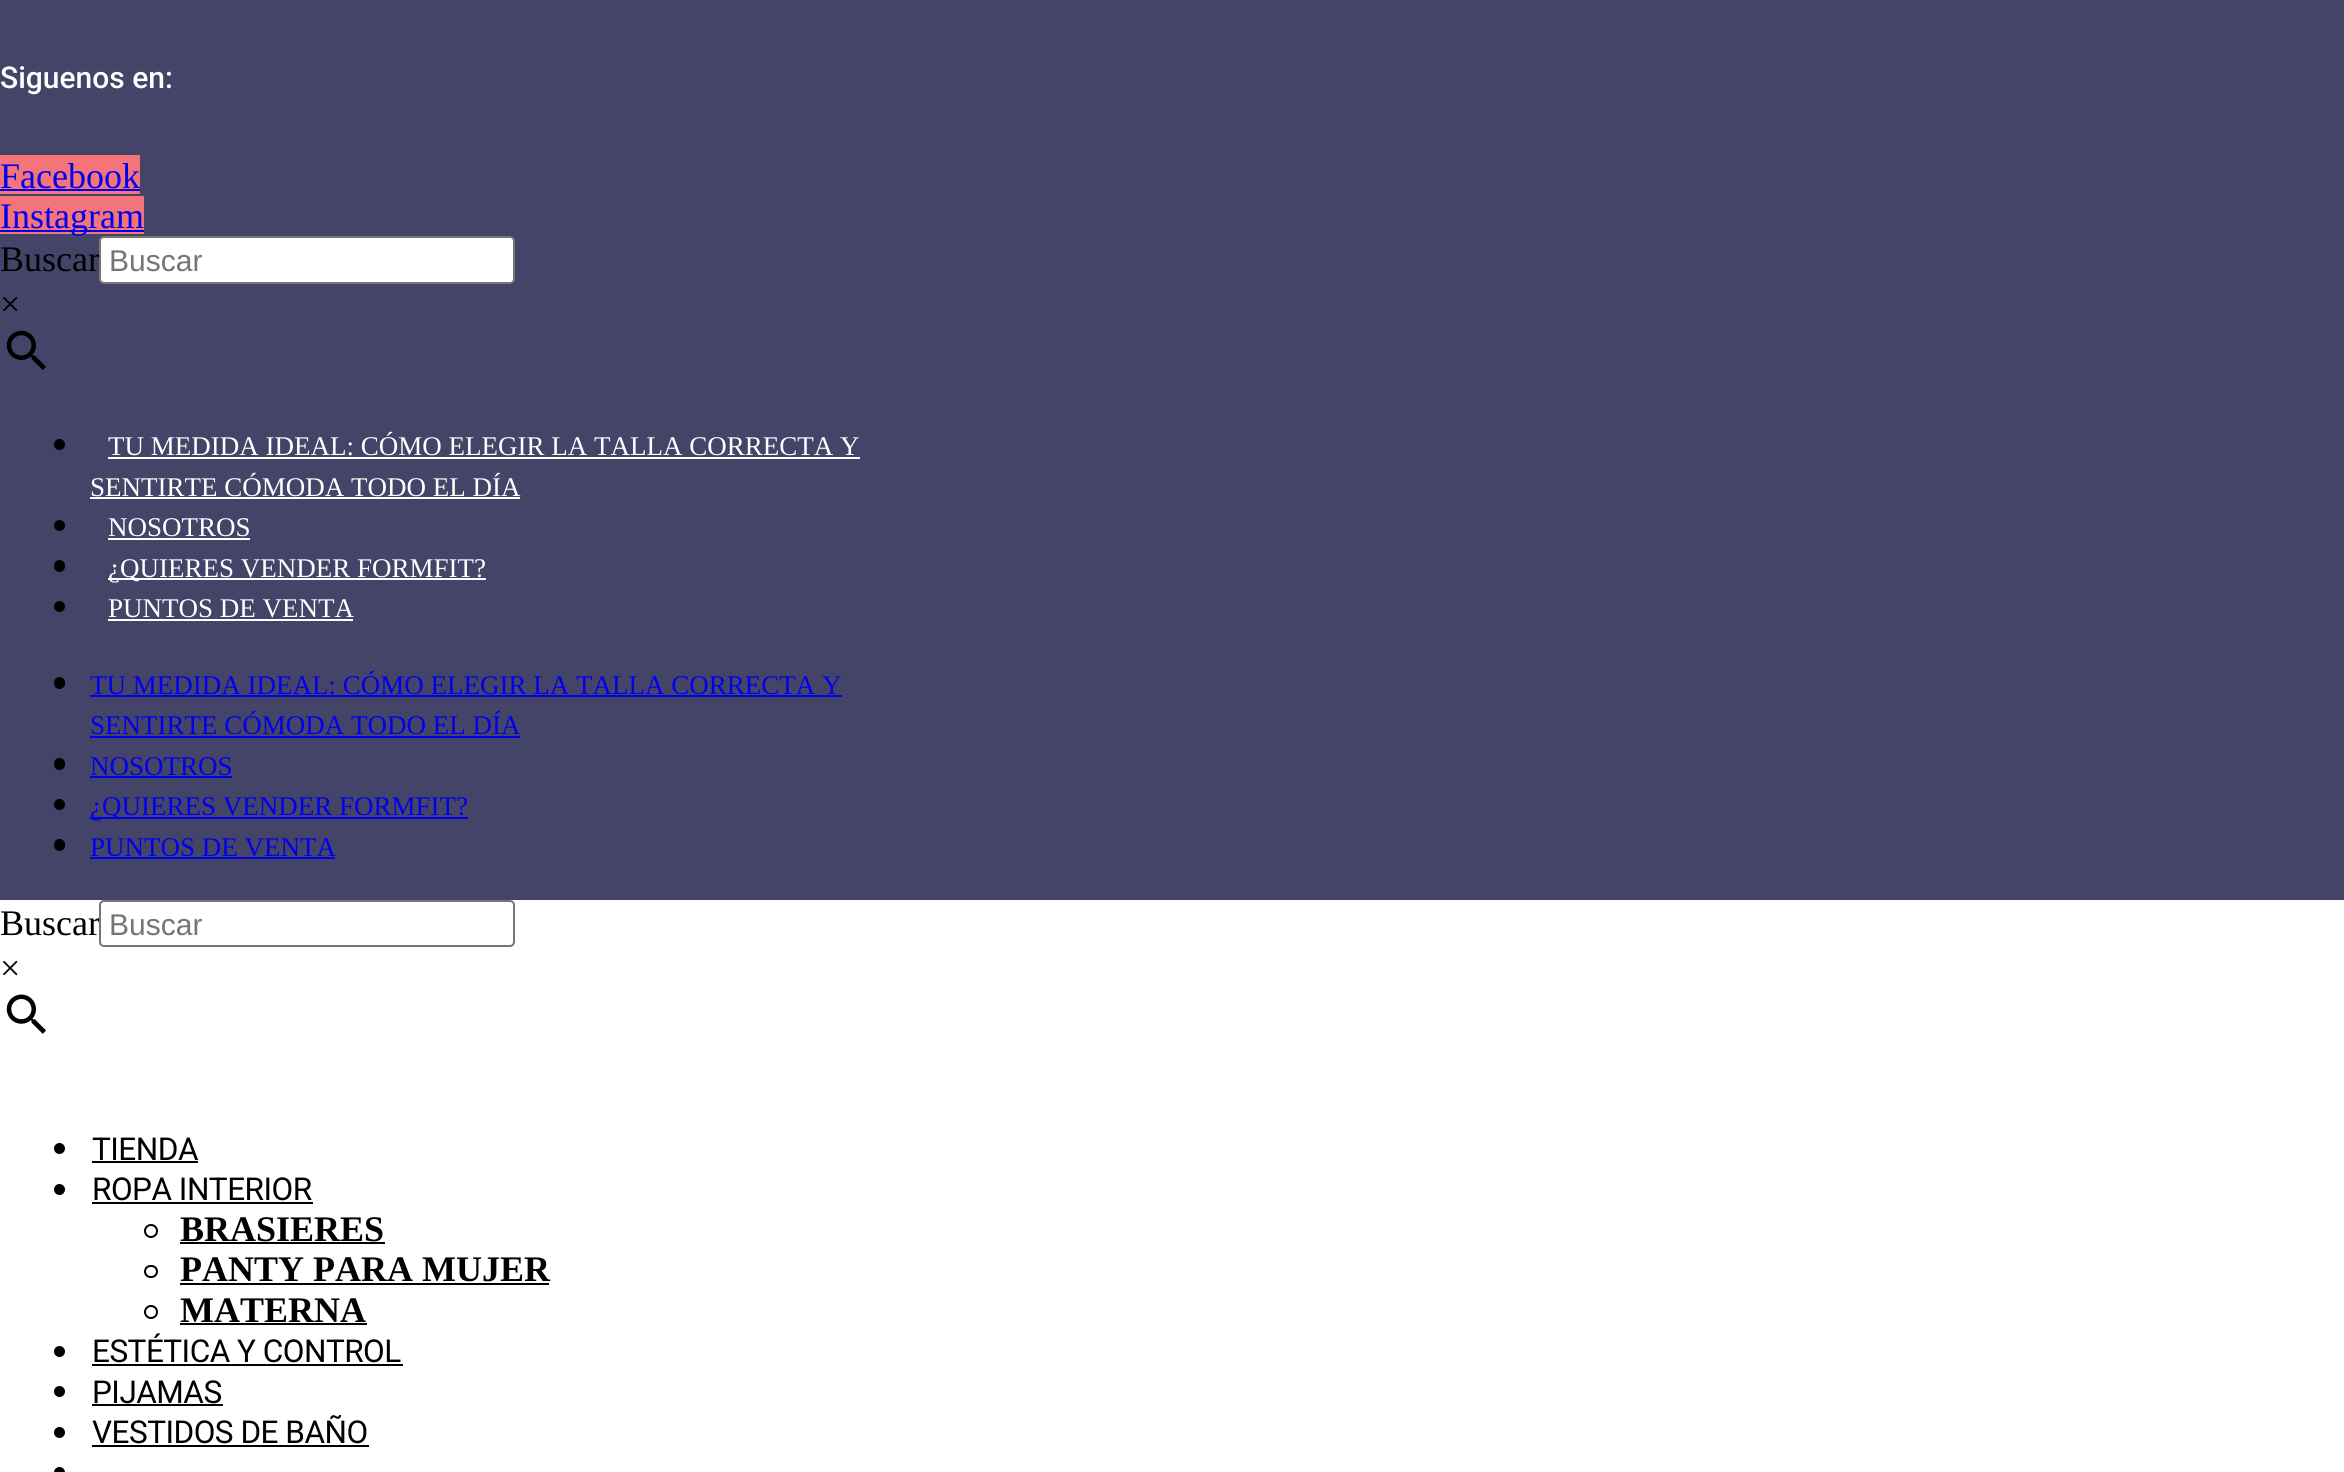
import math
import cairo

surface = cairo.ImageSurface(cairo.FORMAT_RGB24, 2344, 1472)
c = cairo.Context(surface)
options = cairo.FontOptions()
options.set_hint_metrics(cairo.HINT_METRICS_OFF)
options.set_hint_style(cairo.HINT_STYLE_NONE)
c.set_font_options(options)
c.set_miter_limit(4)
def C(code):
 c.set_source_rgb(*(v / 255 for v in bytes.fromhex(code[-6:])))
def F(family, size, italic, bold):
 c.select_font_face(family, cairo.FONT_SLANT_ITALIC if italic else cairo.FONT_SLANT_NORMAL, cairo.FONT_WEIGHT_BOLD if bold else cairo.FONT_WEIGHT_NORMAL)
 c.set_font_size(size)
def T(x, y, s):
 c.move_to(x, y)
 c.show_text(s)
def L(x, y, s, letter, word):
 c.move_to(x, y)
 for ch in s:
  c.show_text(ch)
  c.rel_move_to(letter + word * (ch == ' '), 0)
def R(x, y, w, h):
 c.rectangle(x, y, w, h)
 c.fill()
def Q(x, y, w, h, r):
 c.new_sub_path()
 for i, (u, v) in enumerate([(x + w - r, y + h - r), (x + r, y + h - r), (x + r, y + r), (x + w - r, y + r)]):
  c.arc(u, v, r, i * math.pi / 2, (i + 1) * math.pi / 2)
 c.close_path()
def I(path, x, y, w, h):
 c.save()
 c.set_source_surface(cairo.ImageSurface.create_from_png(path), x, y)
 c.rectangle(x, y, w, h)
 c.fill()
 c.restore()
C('ffffff')
c.paint()
C('434468')
R(0,0,2344,900)
F('Roboto Medium',30,0,0)
C('ffffff')
T(0,88,'Siguenos en:')
C('f4747a')
R(0,155,140,39)
F('Liberation Serif',36,0,0)
C('0000ee')
T(0,188,'Facebook')
R(0,189,140,2)
C('f4747a')
R(0,196,144,38)
C('0000ee')
R(0,230,144,2)
T(0,228,'Instagram')
C('000000')
T(0,271,'Buscar')
C('ffffff')
Q(100,237,414,46,4)
c.fill_preserve()
C('767676')
c.stroke()
F('Liberation Sans',30,0,0)
C('757575')
T(109,271,'Buscar')
F('Liberation Serif',36,0,0)
C('000000')
T(0,316,'×')
I('1.png',6,330,40,40)
c.arc(59.5,444.5,5.5,0,2 * math.pi)
c.fill()
F('Liberation Serif',27,0,0)
C('ffffff')
T(108,455,'TU MEDIDA IDEAL: CÓMO ELEGIR LA TALLA CORRECTA Y')
R(108,457,752,2)
T(90,496,'SENTIRTE CÓMODA TODO EL DÍA')
R(90,497,430,2)
C('000000')
c.new_path()
c.arc(59.5,525.5,5.5,0,2 * math.pi)
c.fill()
C('ffffff')
T(108,536,'NOSOTROS')
R(108,538,142,2)
C('000000')
Q(54,560,11,12,5.5)
c.fill()
C('ffffff')
R(108,578,378,2)
T(108,577,'¿QUIERES VENDER FORMFIT?')
C('000000')
c.new_path()
c.arc(59.5,606.5,5.5,0,2 * math.pi)
c.fill()
C('ffffff')
T(108,617,'PUNTOS DE VENTA')
R(108,619,245,2)
C('000000')
Q(54,677,11,12,5.5)
c.fill()
C('0000ee')
T(90,694,'TU MEDIDA IDEAL: CÓMO ELEGIR LA TALLA CORRECTA Y')
R(90,695,752,2)
T(90,734,'SENTIRTE CÓMODA TODO EL DÍA')
R(90,736,430,2)
C('000000')
Q(54,758,11,12,5.5)
c.fill()
C('0000ee')
T(90,775,'NOSOTROS')
R(90,776,142,2)
C('000000')
c.new_path()
c.arc(59.5,804.5,5.5,0,2 * math.pi)
c.fill()
C('0000ee')
R(90,817,378,2)
T(90,815,'¿QUIERES VENDER FORMFIT?')
C('000000')
Q(54,839,11,12,5.5)
c.fill()
C('0000ee')
T(90,856,'PUNTOS DE VENTA')
R(90,857,245,2)
F('Liberation Serif',36,0,0)
C('000000')
T(0,935,'Buscar')
C('ffffff')
Q(100,901,414,45,4)
c.fill_preserve()
C('767676')
c.stroke()
F('Liberation Sans',30,0,0)
C('757575')
T(109,935,'Buscar')
F('Liberation Serif',36,0,0)
C('000000')
T(0,980,'×')
I('2.png',6,994,40,40)
c.arc(59.5,1148.5,5.5,0,2 * math.pi)
c.fill()
F('Roboto',31.5,0,0)
L(92,1160,'TIENDA',-.5,0)
R(92,1161,106,2)
c.new_path()
c.arc(59.5,1189.5,5.5,0,2 * math.pi)
c.fill()
L(92,1200,'ROPA INTERIOR',-.5,0)
R(92,1202,221,2)
c.new_path()
c.arc(151,1231,6,0,2 * math.pi)
c.stroke()
F('Liberation Serif',36,0,1)
T(180,1241,'BRASIERES')
R(180,1242,205,2)
Q(145,1266,12,11,5.5)
c.stroke()
T(180,1281,'PANTY PARA MUJER')
R(180,1283,369,2)
c.new_path()
c.arc(151,1312,6,0,2 * math.pi)
c.stroke()
T(180,1322,'MATERNA')
R(180,1323,187,2)
c.new_path()
c.arc(59.5,1351.5,5.5,0,2 * math.pi)
c.fill()
F('Roboto',31.5,0,0)
L(92,1362,'ESTÉTICA Y CONTROL',-.5,0)
R(92,1364,311,2)
c.new_path()
c.arc(59.5,1391.5,5.5,0,2 * math.pi)
c.fill()
L(92,1403,'PIJAMAS',-.5,0)
R(92,1404,131,2)
c.new_path()
c.arc(59.5,1432.5,5.5,0,2 * math.pi)
c.fill()
L(92,1443,'VESTIDOS DE BAÑO',-.5,0)
R(92,1445,277,2)
c.new_path()
c.arc(59.5,1472.5,5.5,0,2 * math.pi)
c.fill()
surface.write_to_png('o.png')
